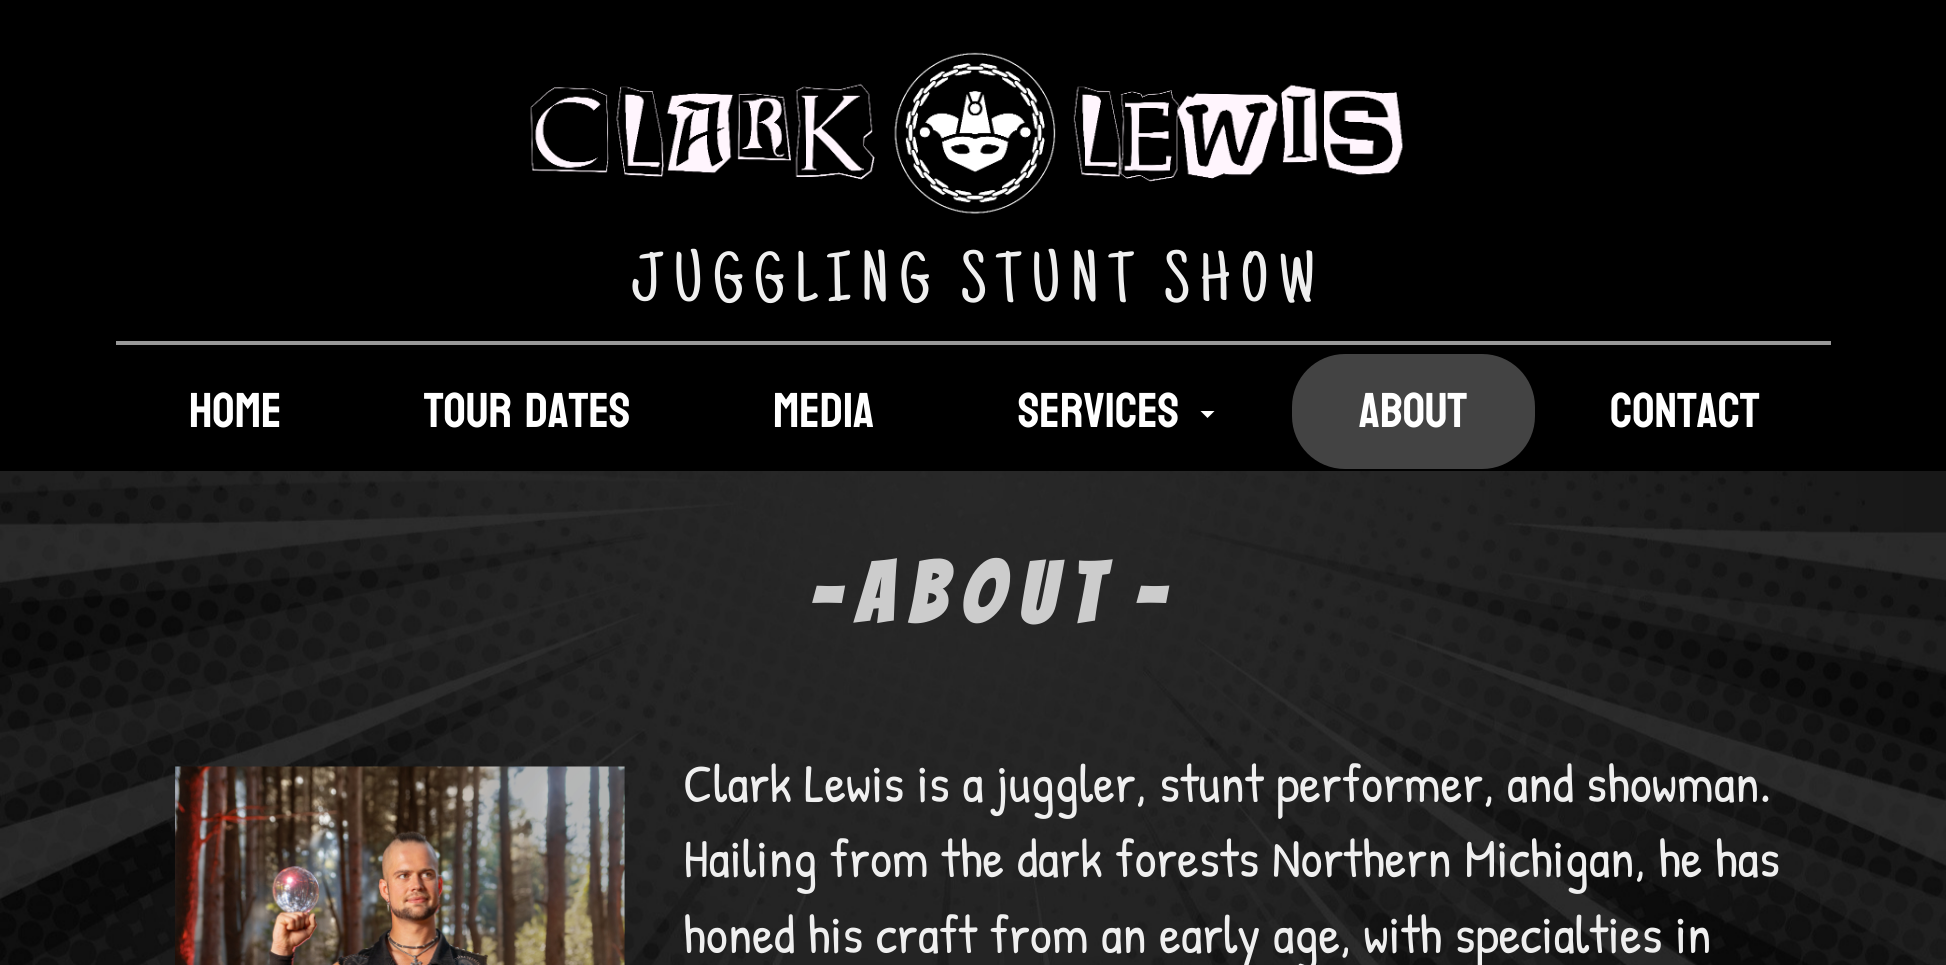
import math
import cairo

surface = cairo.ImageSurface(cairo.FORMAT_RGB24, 1946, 965)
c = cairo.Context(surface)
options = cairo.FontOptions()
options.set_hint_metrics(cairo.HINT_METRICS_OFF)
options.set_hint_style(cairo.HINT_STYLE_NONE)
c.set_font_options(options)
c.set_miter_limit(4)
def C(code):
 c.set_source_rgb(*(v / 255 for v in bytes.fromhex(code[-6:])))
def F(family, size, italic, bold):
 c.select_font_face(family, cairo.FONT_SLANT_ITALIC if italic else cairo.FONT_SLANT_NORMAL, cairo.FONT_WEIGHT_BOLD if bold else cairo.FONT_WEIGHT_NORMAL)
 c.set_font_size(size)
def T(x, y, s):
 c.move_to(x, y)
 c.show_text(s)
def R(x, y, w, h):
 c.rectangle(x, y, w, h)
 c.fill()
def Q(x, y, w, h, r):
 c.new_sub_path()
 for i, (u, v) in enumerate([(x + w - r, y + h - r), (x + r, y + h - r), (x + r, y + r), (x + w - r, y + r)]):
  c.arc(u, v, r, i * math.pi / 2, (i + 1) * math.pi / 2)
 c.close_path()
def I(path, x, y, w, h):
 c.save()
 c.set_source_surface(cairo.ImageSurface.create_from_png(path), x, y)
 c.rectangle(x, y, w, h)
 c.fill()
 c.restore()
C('ffffff')
c.paint()
I('1.png',0,471,1946,494)
C('000000')
R(0,0,1946,471)
I('2.png',530,52,873,162)
F('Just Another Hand',71.75,0,0)
C('efefef')
T(632,301,'J U G G L I N G   S T U N T   S H O W')
C('999999')
R(116,341,1715,4)
F('Koulen',49,0,0)
C('ffffff')
T(189,427,'HOME')
T(424,427,'TOUR DATES')
T(773,427,'MEDIA')
T(1018,427,'SERVICES')
c.new_path()
c.move_to(1200.5,411)
c.line_to(1214.5,411)
c.line_to(1207.5,418)
c.close_path()
c.fill()
C('434343')
Q(1292,354,243,115,53)
c.fill()
C('ffffff')
T(1359,427,'ABOUT')
T(1610,427,'CONTACT')
F('Bangers',84,0,1)
C('cccccc')
T(809,623,'- A B O U T  -')
I('3.png',175,766,450,199)
F('Patrick Hand',54.25,0,0)
C('efefef')
T(683,802,'Clark Lewis is a juggler, stunt performer, and showman.')
T(683,877,'Hailing from the dark forests Northern Michigan, he has')
T(683,953,'honed his craft from an early age, with specialties in')
surface.write_to_png('o.png')
